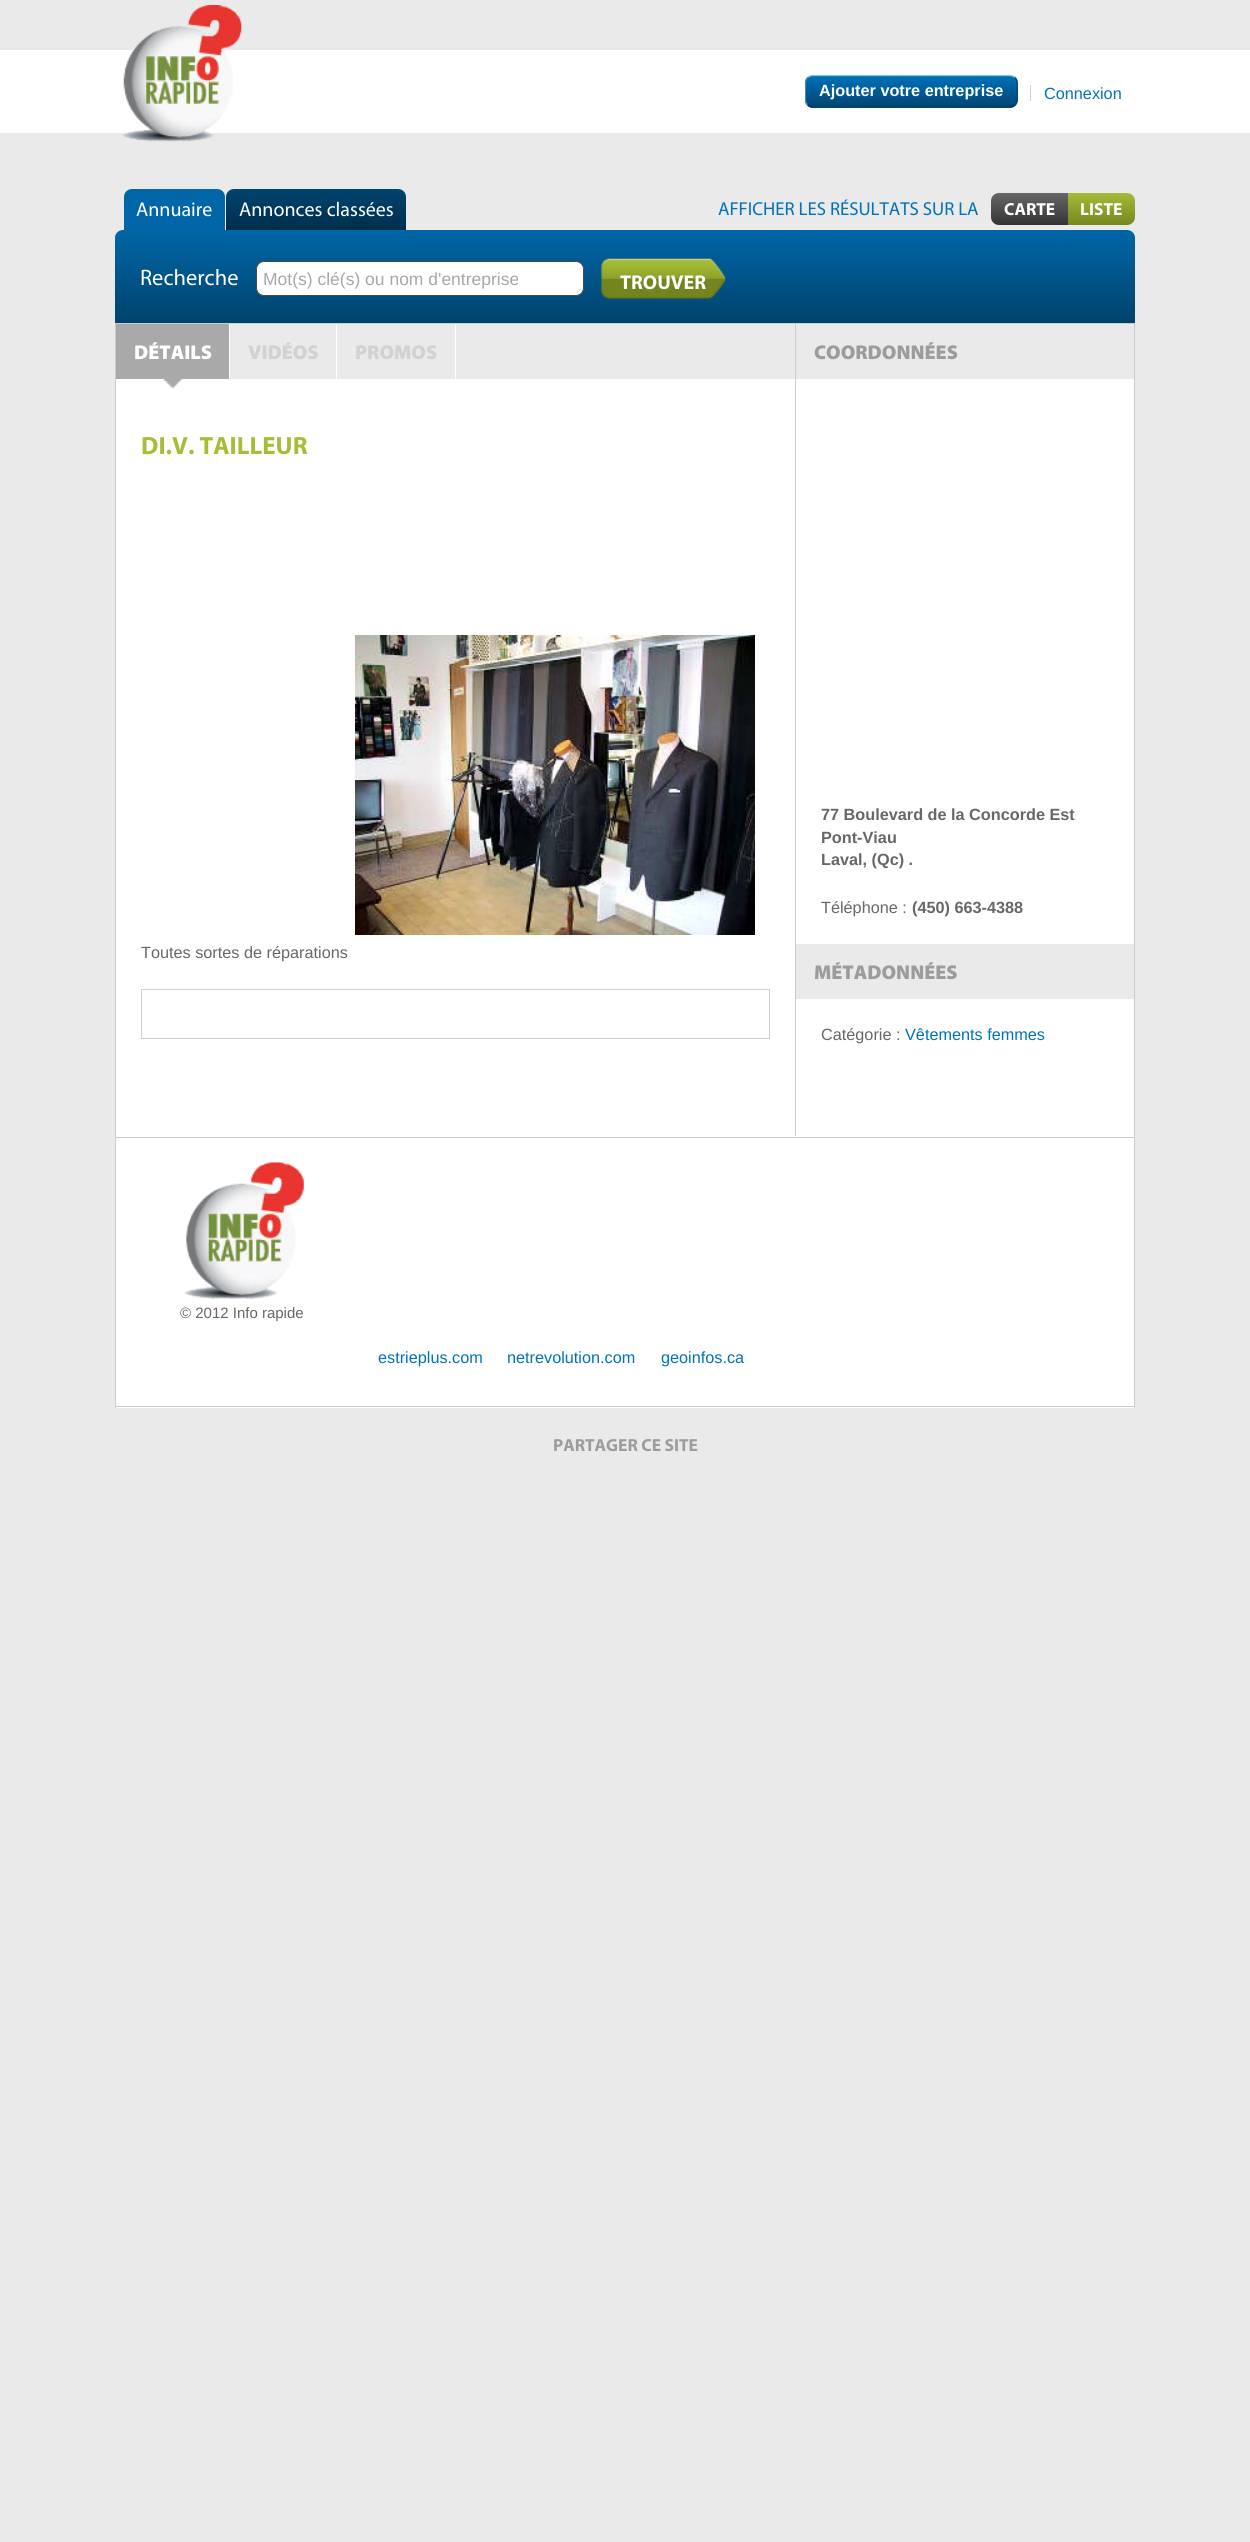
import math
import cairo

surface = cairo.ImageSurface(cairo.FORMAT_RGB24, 1250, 2542)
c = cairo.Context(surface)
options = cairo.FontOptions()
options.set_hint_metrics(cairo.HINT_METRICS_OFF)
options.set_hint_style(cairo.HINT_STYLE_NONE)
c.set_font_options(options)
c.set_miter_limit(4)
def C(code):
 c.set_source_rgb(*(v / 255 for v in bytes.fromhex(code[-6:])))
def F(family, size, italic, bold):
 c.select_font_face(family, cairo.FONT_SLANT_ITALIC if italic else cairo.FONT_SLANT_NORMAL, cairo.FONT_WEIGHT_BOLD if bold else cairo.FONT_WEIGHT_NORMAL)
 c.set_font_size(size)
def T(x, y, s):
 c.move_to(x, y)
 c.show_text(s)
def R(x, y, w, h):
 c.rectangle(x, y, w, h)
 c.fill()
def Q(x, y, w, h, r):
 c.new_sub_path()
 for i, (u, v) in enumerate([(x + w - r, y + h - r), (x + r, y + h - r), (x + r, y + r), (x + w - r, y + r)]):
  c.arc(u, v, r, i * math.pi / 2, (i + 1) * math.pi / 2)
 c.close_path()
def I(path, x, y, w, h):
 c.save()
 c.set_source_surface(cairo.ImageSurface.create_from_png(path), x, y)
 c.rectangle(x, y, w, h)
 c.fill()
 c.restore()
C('eaeaea')
c.paint()
C('ffffff')
R(0,50,1250,83)
I('1.png',122,5,120,137)
c.save()
Q(805,75,213,33,8)
c.clip()
gradient = cairo.LinearGradient(911,76,911,106)
gradient.add_color_stop_rgba(0,0,0.443,0.725,1)
gradient.add_color_stop_rgba(1,0,0.275,0.455,1)
c.set_source(gradient)
R(805,76,213,30)
gradient = cairo.LinearGradient(911,106,911,136)
gradient.add_color_stop_rgba(0,0,0.443,0.725,1)
gradient.add_color_stop_rgba(1,0,0.275,0.455,1)
c.set_source(gradient)
R(805,106,213,2)
c.restore()
c.new_path()
c.move_to(807.5,77.5)
c.curve_to(809,76.5,810.5,75.5,812.5,75.5)
c.line_to(1010,75.5)
c.curve_to(1012,75.5,1013.5,76.5,1015,77.5)
C('90c2e1')
c.set_line_width(1.2)
c.stroke()
c.new_path()
c.move_to(1015,77.5)
c.curve_to(1016,79,1017,80.5,1017,82.5)
c.line_to(1017,100)
c.curve_to(1017,102,1016,103.5,1015,105)
C('004876')
c.stroke()
c.new_path()
c.move_to(1015,105)
c.curve_to(1013.5,106,1012,107,1010,107)
c.line_to(812.5,107)
c.curve_to(810.5,107,809,106,807.5,105)
C('002a46')
c.stroke()
c.save()
c.rectangle(805,63,329,57)
c.clip()
c.new_path()
c.move_to(807.5,105)
c.curve_to(806.5,103.5,805.5,102,805.5,100)
c.line_to(805.5,82.5)
c.curve_to(805.5,80.5,806.5,79,807.5,77.5)
C('4889b4')
c.stroke()
c.restore()
F('Liberation Sans',16.25,0,1)
C('feffff')
T(819,96,'Ajouter votre entreprise')
C('d3d3d3')
R(1030,85,1,16)
F('Liberation Sans',16.25,0,0)
C('0072bb')
T(1044,99,'Connexion')
C('0066a7')
c.new_path()
c.move_to(132,189)
c.line_to(217,189)
c.curve_to(221.5,189,225,192.5,225,197)
c.line_to(225,230)
c.line_to(124,230)
c.line_to(124,197)
c.curve_to(124,192.5,127.5,189,132,189)
c.close_path()
c.fill()
F('Myriad',20,0,0)
C('feffff')
T(136,216,'Annuaire')
gradient = cairo.LinearGradient(316,189,316,230)
gradient.add_color_stop_rgba(0,0,0.267,0.439,1)
gradient.add_color_stop_rgba(1,0,0.18,0.294,1)
c.set_source(gradient)
c.new_path()
c.move_to(234,189)
c.line_to(398,189)
c.curve_to(402.5,189,406,192.5,406,197)
c.line_to(406,230)
c.line_to(226,230)
c.line_to(226,197)
c.curve_to(226,192.5,229.5,189,234,189)
c.close_path()
c.fill()
C('feffff')
T(239,216,'Annonces classées')
F('Myriad',18.75,0,0)
C('0072bb')
T(718,215,'AFFICHER LES RÉSULTATS SUR LA')
gradient = cairo.LinearGradient(1029,193,1029,225)
gradient.add_color_stop_rgba(0,0.404,0.404,0.404,1)
gradient.add_color_stop_rgba(1,0.204,0.204,0.204,1)
c.set_source(gradient)
c.new_path()
c.move_to(999,193)
c.line_to(1068,193)
c.line_to(1068,225)
c.line_to(999,225)
c.curve_to(994.5,225,991,221.5,991,217)
c.line_to(991,201)
c.curve_to(991,196.5,994.5,193,999,193)
c.close_path()
c.fill()
F('Myriad',17.5,0,1)
C('feffff')
T(1004,215,'CARTE')
gradient = cairo.LinearGradient(1101,193,1101,225)
gradient.add_color_stop_rgba(0,0.647,0.733,0.216,1)
gradient.add_color_stop_rgba(1,0.463,0.529,0.125,1)
c.set_source(gradient)
c.new_path()
c.move_to(1068,193)
c.line_to(1127,193)
c.curve_to(1131.5,193,1135,196.5,1135,201)
c.line_to(1135,217)
c.curve_to(1135,221.5,1131.5,225,1127,225)
c.line_to(1068,225)
c.close_path()
c.fill()
C('feffff')
T(1080,215,'LISTE')
gradient = cairo.LinearGradient(625,230,625,323)
gradient.add_color_stop_rgba(0,0,0.4,0.655,1)
gradient.add_color_stop_rgba(1,0,0.263,0.427,1)
c.set_source(gradient)
c.new_path()
c.move_to(123,230)
c.line_to(1127,230)
c.curve_to(1131.5,230,1135,233.5,1135,238)
c.line_to(1135,323)
c.line_to(115,323)
c.line_to(115,238)
c.curve_to(115,233.5,118.5,230,123,230)
c.close_path()
c.fill()
F('Myriad',22.5,0,0)
C('feffff')
T(140,285,'Recherche')
C('ffffff')
Q(256.5,261.5,327,34,7.5)
c.fill_preserve()
C('484848')
c.set_line_width(1)
c.stroke()
F('Liberation Sans',17.5,0,0)
C('a7a7a7')
T(263,285,'Mot(s) clé(s) ou nom d\'entreprise')
I('2.png',601,258,126,41)
F('Myriad',20,0,1)
C('feffff')
T(620,289,'TROUVER')
C('ffffff')
R(116,379,1018,758)
c.rectangle(115.5,323.5,1019,814)
C('cccccc')
c.stroke()
C('a9a9a9')
R(116,324,113,55)
C('ffffff')
R(229,324,1,55)
F('Myriad Black',20,0,0)
C('feffff')
T(134,359,'DÉTAILS')
I('3.png',162,378,21,11)
C('ffffff')
R(336,324,1,55)
C('d2d2d2')
T(248,359,'VIDÉOS')
C('ffffff')
R(455,324,1,55)
C('d2d2d2')
T(355,359,'PROMOS')
F('Myriad',25,0,1)
C('a7bd37')
T(141,454,'DI.V. TAILLEUR')
I('4.png',355,635,400,300)
F('Liberation Sans',16.25,0,0)
C('676767')
T(141,958,'Toutes sortes de réparations')
c.rectangle(141.5,989.5,628,49)
C('cfcfcf')
c.stroke()
C('cccccc')
R(795,324,1,812)
F('Myriad Black',20,0,0)
C('9c9c9c')
T(814,359,'COORDONNÉES')
F('Liberation Sans',16.25,0,1)
C('676767')
T(821,820,'77 Boulevard de la Concorde Est')
T(821,843,'Pont-Viau')
T(821,865,'Laval, (Qc) .')
F('Liberation Sans',16.25,0,0)
T(821,913,'Téléphone :')
F('Liberation Sans',16.25,0,1)
T(912,913,'(450) 663-4388')
C('eaeaea')
R(796,944,338,55)
F('Myriad Black',20,0,0)
C('9c9c9c')
T(814,979,'MÉTADONNÉES')
F('Liberation Sans',16.25,0,0)
C('676767')
T(821,1040,'Catégorie :')
C('0072bb')
T(905,1040,'Vêtements femmes')
C('ffffff')
R(116,1138,1018,270)
C('cccccc')
R(1134,1138,1,270)
R(115,1406,1020,1)
R(115,1138,1,270)
I('5.png',184,1162,120,137)
F('Liberation Sans',15,0,0)
C('676767')
T(180,1318,'© 2012 Info rapide')
F('Liberation Sans',16.25,0,0)
C('0072bb')
T(378,1363,'estrieplus.com')
T(507,1363,'netrevolution.com')
T(661,1363,'geoinfos.ca')
F('Myriad',17.5,0,1)
C('9c9c9c')
T(553,1451,'PARTAGER CE SITE')
surface.write_to_png('o.png')
